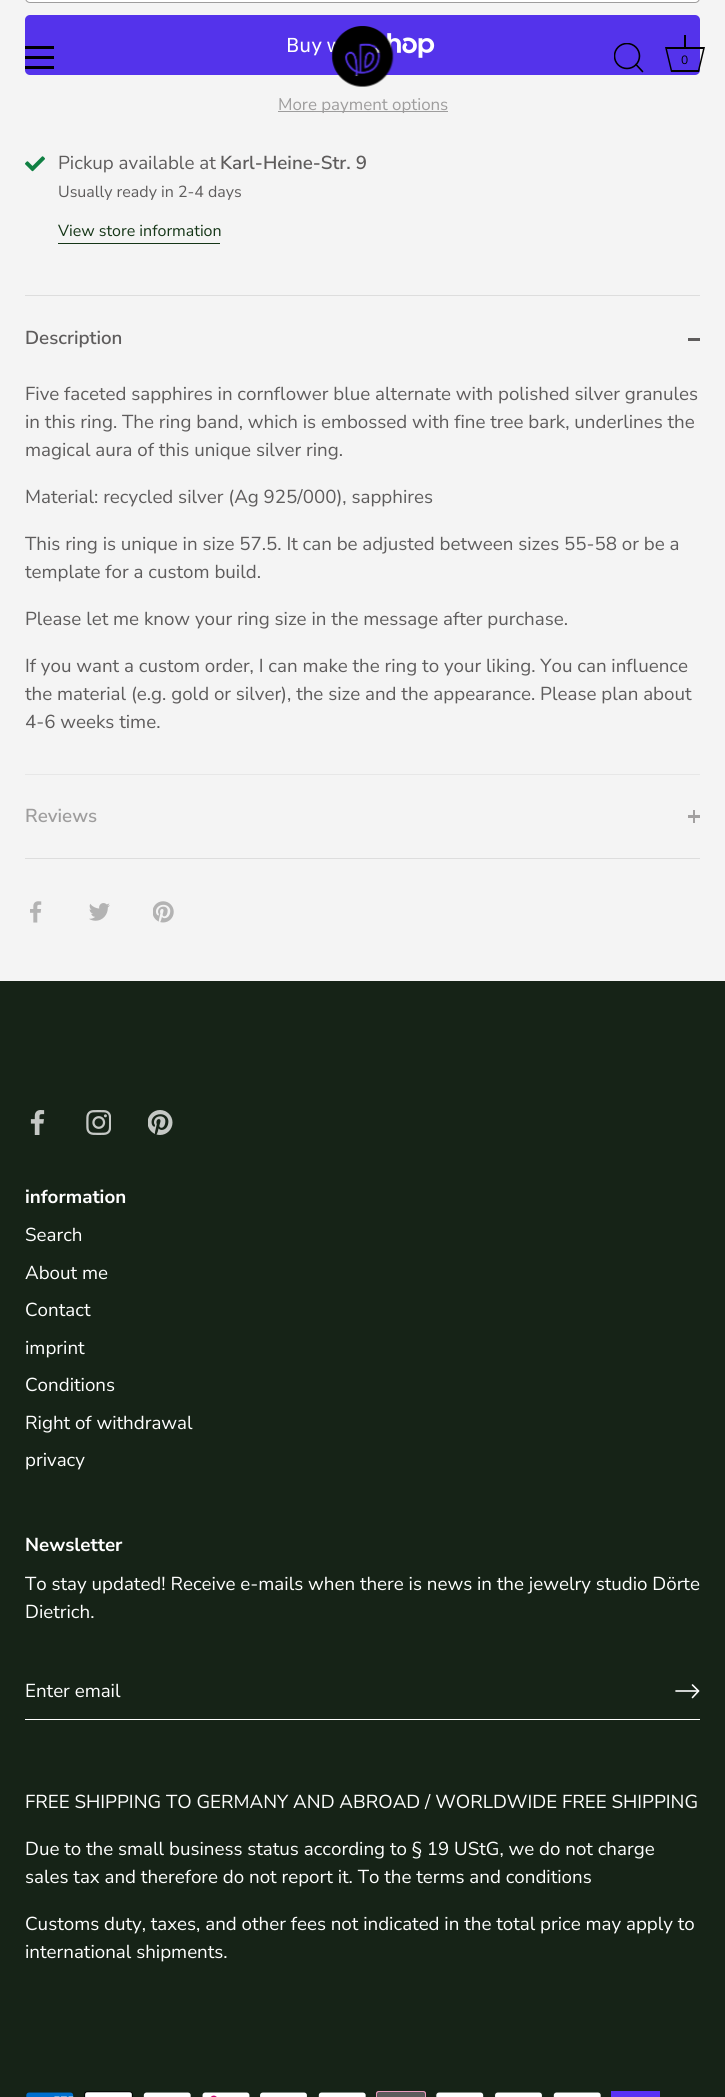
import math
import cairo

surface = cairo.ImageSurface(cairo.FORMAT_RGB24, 725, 2097)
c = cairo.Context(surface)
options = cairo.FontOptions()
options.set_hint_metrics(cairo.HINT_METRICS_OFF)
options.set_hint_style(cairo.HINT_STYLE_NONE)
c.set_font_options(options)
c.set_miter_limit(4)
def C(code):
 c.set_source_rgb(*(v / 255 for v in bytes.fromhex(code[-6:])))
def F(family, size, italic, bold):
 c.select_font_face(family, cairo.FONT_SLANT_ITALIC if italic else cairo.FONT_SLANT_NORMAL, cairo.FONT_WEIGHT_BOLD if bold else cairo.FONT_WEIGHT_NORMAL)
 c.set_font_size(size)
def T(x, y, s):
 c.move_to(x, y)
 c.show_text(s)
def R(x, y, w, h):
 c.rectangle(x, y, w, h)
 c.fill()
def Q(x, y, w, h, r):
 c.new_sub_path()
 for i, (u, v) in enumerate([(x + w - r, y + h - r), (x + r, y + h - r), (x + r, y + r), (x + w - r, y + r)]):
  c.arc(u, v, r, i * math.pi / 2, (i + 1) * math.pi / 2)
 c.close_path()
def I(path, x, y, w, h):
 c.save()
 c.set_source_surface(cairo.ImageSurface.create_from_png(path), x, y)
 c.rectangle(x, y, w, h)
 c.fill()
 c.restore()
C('f4f4f4')
c.paint()
C('ffffff')
Q(25.5,-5.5,674,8,4.5)
c.fill_preserve()
C('9e9d9d')
c.set_line_width(1)
c.stroke()
C('5433eb')
Q(25,15,675,60,5)
c.fill()
F('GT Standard',20,0,0)
C('ffffff')
T(286,52,'Buy w')
I('1.png',373,33,62,25)
C('9e9d9d')
R(278,111,170,1)
F('Nunito Sans',16.9,0,0)
T(278,110,'More payment options')
I('2.png',25,156,20,16)
F('Nunito Sans',18.75,0,0)
C('5e5c5c')
T(58,169,'Pickup available at')
F('Nunito Sans SemiBold',18.75,0,0)
T(220,169,'Karl-Heine-Str. 9')
F('Nunito Sans',16,0,0)
T(58,197,'Usually ready in 2-4 days')
C('153617')
T(58,236,'View store information')
R(58,243,162,1)
C('dddddd')
R(25,295,675,1)
R(25,858,675,1)
F('Nunito Sans SemiBold',18.75,0,0)
C('5e5c5c')
T(25,344,'Description')
R(688,338,12,3)
F('Nunito Sans',18.75,0,0)
T(25,400,'Five faceted sapphires in cornflower blue alternate with polished silver granules')
T(25,428,'in this ring. The ring band, which is embossed with fine tree bark, underlines the')
T(25,456,'magical aura of this unique silver ring.')
T(25,503,'Material: recycled silver (Ag 925/000), sapphires')
T(25,550,'This ring is unique in size 57.5. It can be adjusted between sizes 55-58 or be a')
T(25,578,'template for a custom build.')
T(25,625,'Please let me know your ring size in the message after purchase.')
T(25,672,'If you want a custom order, I can make the ring to your liking. You can influence')
T(25,700,'the material (e.g. gold or silver), the size and the appearance. Please plan about')
T(25,728,'4-6 weeks time.')
C('e7e7e7')
R(25,774,675,1)
F('Nunito Sans SemiBold',18.75,0,0)
C('9e9d9d')
T(25,822,'Reviews')
C('a2a0a0')
R(688,815,12,3)
R(693,810,2,13)
I('3.png',30,901,12,22)
I('4.png',89,903,21,18)
I('5.png',153,901,21,22)
C('000000')
R(25,46,29,3)
R(25,56,29,3)
R(25,66,29,3)
I('6.png',331,26,63,61)
c.save()
c.rectangle(614,43,30,30)
c.clip()
c.arc(627,56,12.5,0,2 * math.pi)
c.set_line_width(1.6)
c.stroke()
c.restore()
c.new_path()
c.move_to(642.5,71.5)
c.line_to(636,64.5)
c.set_line_width(1.6)
c.set_line_cap(cairo.LINE_CAP_ROUND)
c.set_line_join(cairo.LINE_JOIN_ROUND)
c.stroke()
R(684,35,2,12)
c.new_path()
c.move_to(703,49)
c.line_to(698,70)
c.line_to(672,70)
c.line_to(667,49)
c.line_to(703,49)
c.move_to(705,47)
c.line_to(665,47)
c.line_to(671,72)
c.line_to(699,72)
c.close_path()
c.fill()
F('Nunito Sans',12,0,0)
T(681,64,'0')
C('162317')
R(0,981,725,1116)
I('7.png',30,1110,15,25)
I('8.png',86,1110,25,25)
I('9.png',148,1110,25,25)
F('Nunito Sans',18.75,0,1)
C('ffffff')
T(25,1203,'information')
F('Nunito Sans',18.75,0,0)
T(25,1241,'Search')
T(25,1279,'About me')
T(25,1316,'Contact')
T(25,1354,'imprint')
T(25,1391,'Conditions')
T(25,1429,'Right of withdrawal')
T(25,1466,'privacy')
F('Nunito Sans',18.75,0,1)
T(25,1551,'Newsletter')
F('Nunito Sans',18.75,0,0)
T(25,1590,'To stay updated! Receive e-mails when there is news in the jewelry studio Dörte')
T(25,1618,'Dietrich.')
R(25,1719,675,1)
T(25,1697,'Enter email')
c.new_path()
c.move_to(692.5,1697.5)
c.line_to(698.5,1691)
c.line_to(692.5,1685)
c.set_line_join(cairo.LINE_JOIN_MITER)
c.stroke()
c.new_path()
c.move_to(698,1691)
c.line_to(676,1691)
c.set_line_join(cairo.LINE_JOIN_ROUND)
c.stroke()
T(25,1808,'FREE SHIPPING TO GERMANY AND ABROAD / WORLDWIDE FREE SHIPPING')
T(25,1855,'Due to the small business status according to § 19 UStG, we do not charge')
T(25,1883,'sales tax and therefore do not report it. To the terms and conditions')
T(25,1930,'Customs duty, taxes, and other fees not indicated in the total price may apply to')
T(25,1958,'international shipments.')
I('10.png',26,2092,48,5)
I('11.png',84,2091,49,6)
I('12.png',143,2092,48,5)
I('13.png',202,2092,48,5)
I('14.png',260,2092,47,5)
I('12.png',318,2092,48,5)
I('15.png',376,2091,50,6)
I('16.png',435,2092,49,5)
I('17.png',494,2092,49,5)
I('18.png',553,2092,48,5)
C('5a31f4')
R(611,2091,49,6)
surface.write_to_png('o.png')
